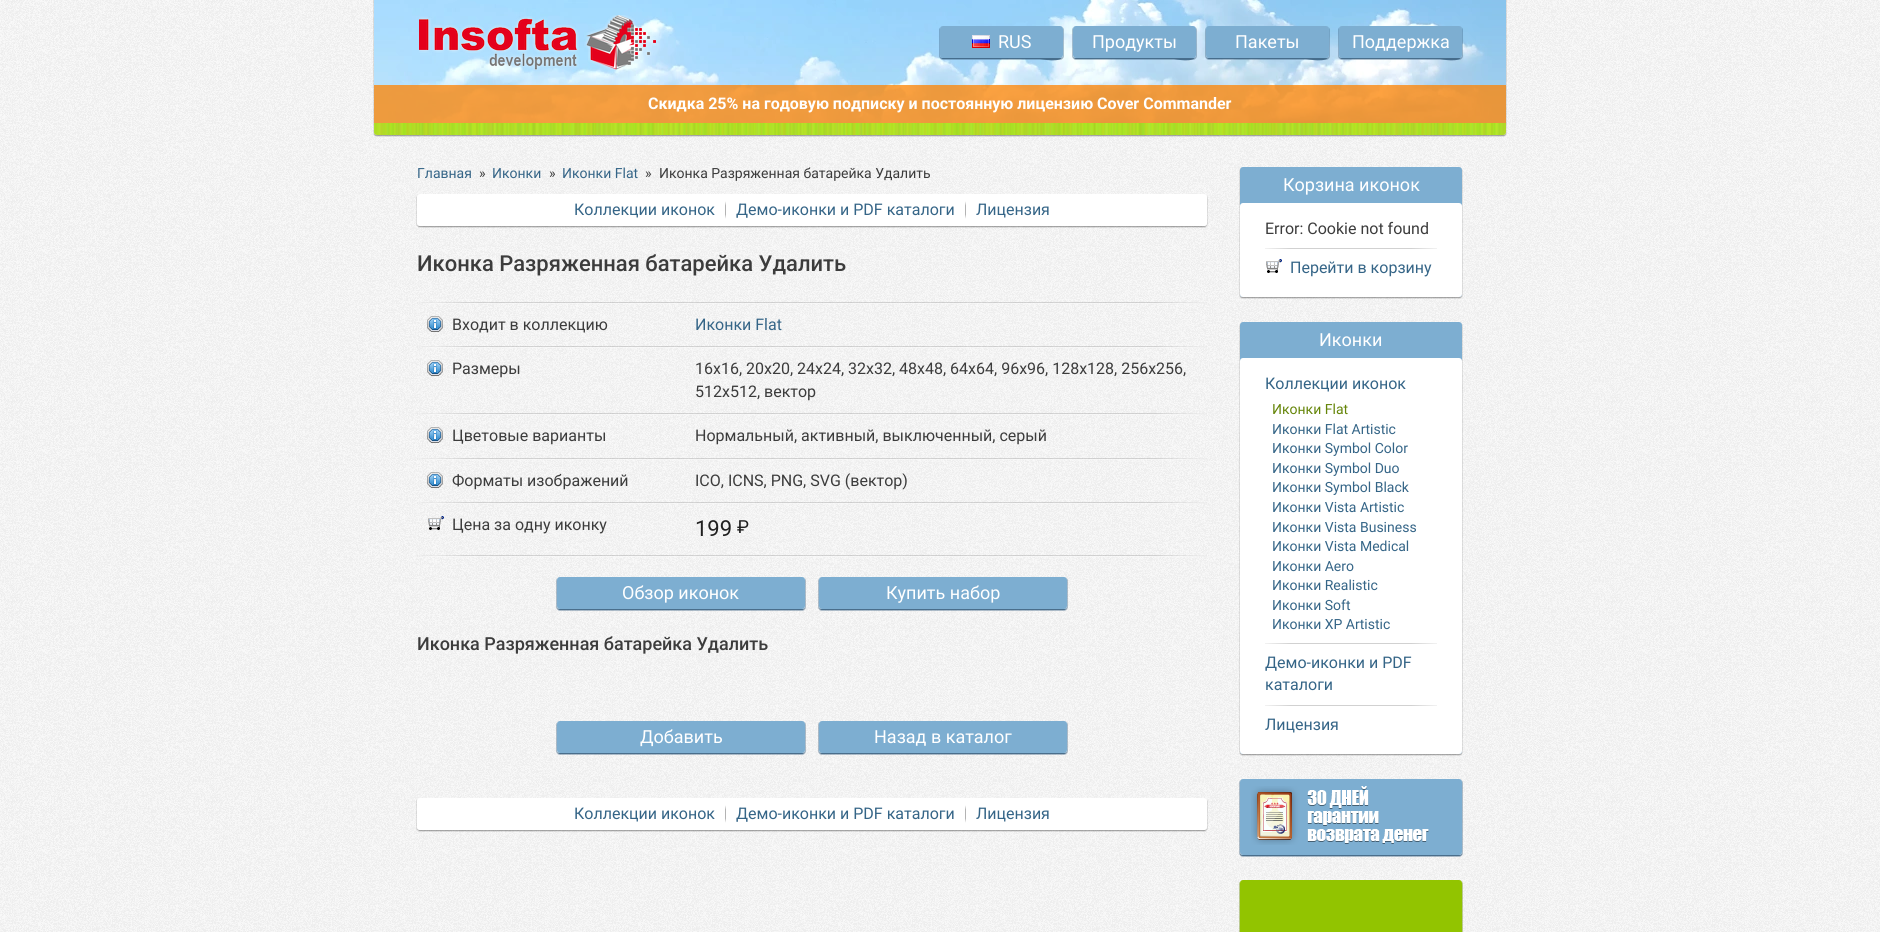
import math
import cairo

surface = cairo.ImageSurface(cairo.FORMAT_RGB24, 1880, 932)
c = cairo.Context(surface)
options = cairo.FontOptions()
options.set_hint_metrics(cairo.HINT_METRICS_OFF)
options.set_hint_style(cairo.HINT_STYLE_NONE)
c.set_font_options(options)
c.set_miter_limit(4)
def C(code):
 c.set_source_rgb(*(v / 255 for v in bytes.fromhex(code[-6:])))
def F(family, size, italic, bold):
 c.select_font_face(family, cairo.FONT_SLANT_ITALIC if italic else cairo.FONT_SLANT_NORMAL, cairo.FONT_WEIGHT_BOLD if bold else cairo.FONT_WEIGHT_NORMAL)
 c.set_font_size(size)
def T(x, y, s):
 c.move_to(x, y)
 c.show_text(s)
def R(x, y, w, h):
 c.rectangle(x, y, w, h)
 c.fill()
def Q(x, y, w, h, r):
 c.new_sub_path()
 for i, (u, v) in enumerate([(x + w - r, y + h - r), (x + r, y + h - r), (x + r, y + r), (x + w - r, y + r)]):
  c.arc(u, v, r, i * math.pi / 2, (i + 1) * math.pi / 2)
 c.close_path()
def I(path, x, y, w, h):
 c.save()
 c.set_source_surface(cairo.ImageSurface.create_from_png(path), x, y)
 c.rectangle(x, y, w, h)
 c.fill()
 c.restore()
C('ffffff')
c.paint()
I('1.png',0,0,1880,932)
c.set_source_rgba(0,0,0,0.1)
c.new_path()
c.move_to(373,-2)
c.line_to(373,123)
c.line_to(374,123)
c.line_to(374,0)
c.line_to(1506,0)
c.line_to(1506,123)
c.line_to(1507,123)
c.line_to(1507,-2)
c.close_path()
c.fill()
I('2.png',374,0,1132,123)
I('3.png',419,15,237,55)
c.set_source_rgba(0.251,0.4,0.525,0.4)
c.new_path()
c.move_to(943,26)
c.curve_to(941,26,939,28,939,30)
c.line_to(939,56)
c.curve_to(939,58,941,60,943,60)
c.line_to(1060,60)
c.curve_to(1062,60,1064,58,1064,56)
c.line_to(1064,30)
c.curve_to(1064,28,1062,26,1060,26)
c.curve_to(1062,26,1063,27,1063,29)
c.line_to(1063,55)
c.curve_to(1063,57,1062,58,1060,58)
c.line_to(943,58)
c.curve_to(941,58,940,57,940,55)
c.line_to(940,29)
c.curve_to(940,27,941,26,943,26)
c.close_path()
c.fill()
c.set_source_rgba(0.251,0.4,0.525,0.9)
c.new_path()
c.move_to(940,55)
c.curve_to(940,57,941,59,943,59)
c.line_to(1040,59)
c.curve_to(1041,59,1063,64,1063,55)
c.curve_to(1063,57,1062,58,1060,58)
c.line_to(943,58)
c.curve_to(941,58,940,57,940,55)
c.close_path()
c.fill()
C('7daed1')
Q(940,26,123,32,3)
c.fill()
I('4.png',972,35,18,13)
F('Roboto',18,0,0)
C('ffffff')
T(998,48,'RUS')
c.set_source_rgba(0.251,0.4,0.525,0.4)
c.new_path()
c.move_to(1076,26)
c.curve_to(1074,26,1072,28,1072,30)
c.line_to(1072,56)
c.curve_to(1072,58,1074,60,1076,60)
c.line_to(1193,60)
c.curve_to(1195,60,1197,58,1197,56)
c.line_to(1197,30)
c.curve_to(1197,28,1195,26,1193,26)
c.curve_to(1195,26,1196,27,1196,29)
c.line_to(1196,55)
c.curve_to(1196,57,1195,58,1193,58)
c.line_to(1076,58)
c.curve_to(1074,58,1073,57,1073,55)
c.line_to(1073,29)
c.curve_to(1073,27,1074,26,1076,26)
c.close_path()
c.fill()
c.set_source_rgba(0.251,0.4,0.525,0.9)
c.new_path()
c.move_to(1073,55)
c.curve_to(1073,57,1074,59,1076,59)
c.line_to(1174,59)
c.curve_to(1174,59,1196,64,1196,55)
c.curve_to(1196,57,1195,58,1193,58)
c.line_to(1076,58)
c.curve_to(1074,58,1073,57,1073,55)
c.close_path()
c.fill()
C('7daed1')
Q(1073,26,123,32,3)
c.fill()
C('ffffff')
T(1092,48,'Продукты')
c.set_source_rgba(0.251,0.4,0.525,0.4)
c.new_path()
c.move_to(1209,26)
c.curve_to(1207,26,1205,28,1205,30)
c.line_to(1205,56)
c.curve_to(1205,58,1207,60,1209,60)
c.line_to(1326,60)
c.curve_to(1328,60,1330,58,1330,56)
c.line_to(1330,30)
c.curve_to(1330,28,1328,26,1326,26)
c.curve_to(1328,26,1329,27,1329,29)
c.line_to(1329,55)
c.curve_to(1329,57,1328,58,1326,58)
c.line_to(1209,58)
c.curve_to(1207,58,1206,57,1206,55)
c.line_to(1206,29)
c.curve_to(1206,27,1207,26,1209,26)
c.close_path()
c.fill()
c.set_source_rgba(0.251,0.4,0.525,0.9)
c.new_path()
c.move_to(1206,55)
c.curve_to(1206,57,1207,59,1209,59)
c.line_to(1306,59)
c.curve_to(1307,59,1329,64,1329,55)
c.curve_to(1329,57,1328,58,1326,58)
c.line_to(1209,58)
c.curve_to(1207,58,1206,57,1206,55)
c.close_path()
c.fill()
C('7daed1')
Q(1206,26,123,32,3)
c.fill()
C('ffffff')
T(1235,48,'Пакеты')
c.set_source_rgba(0.251,0.4,0.525,0.4)
c.new_path()
c.move_to(1342,26)
c.curve_to(1340,26,1338,28,1338,30)
c.line_to(1338,56)
c.curve_to(1338,58,1340,60,1342,60)
c.line_to(1459,60)
c.curve_to(1461,60,1463,58,1463,56)
c.line_to(1463,30)
c.curve_to(1463,28,1461,26,1459,26)
c.curve_to(1461,26,1462,27,1462,29)
c.line_to(1462,55)
c.curve_to(1462,57,1461,58,1459,58)
c.line_to(1342,58)
c.curve_to(1340,58,1339,57,1339,55)
c.line_to(1339,29)
c.curve_to(1339,27,1340,26,1342,26)
c.close_path()
c.fill()
c.set_source_rgba(0.251,0.4,0.525,0.9)
c.new_path()
c.move_to(1339,55)
c.curve_to(1339,57,1340,59,1342,59)
c.line_to(1440,59)
c.curve_to(1440,59,1462,64,1462,55)
c.curve_to(1462,57,1461,58,1459,58)
c.line_to(1342,58)
c.curve_to(1340,58,1339,57,1339,55)
c.close_path()
c.fill()
C('7daed1')
Q(1339,26,123,32,3)
c.fill()
C('ffffff')
T(1352,48,'Поддержка')
c.set_source_rgba(1,0.514,0,0.75)
R(374,85,1132,38)
F('Roboto',16,0,1)
C('ffffff')
T(648,109,'Скидка 25% на годовую подписку и постоянную лицензию Cover Commander')
c.set_source_rgba(0,0,0,0.1)
c.new_path()
c.move_to(373,123)
c.line_to(373,133)
c.curve_to(373,135,375,137,377,137)
c.line_to(1503,137)
c.curve_to(1505,137,1507,135,1507,133)
c.line_to(1507,123)
c.line_to(1506,123)
c.curve_to(1506,126,1508,135,1503,135)
c.line_to(376,135)
c.curve_to(373,133,374,126,374,123)
c.close_path()
c.fill()
c.set_source_rgba(0,0,0,0.25)
c.new_path()
c.move_to(374,132)
c.line_to(374,133)
c.curve_to(374,135,375,136,377,136)
c.line_to(1503,136)
c.curve_to(1505,136,1506,135,1506,133)
c.line_to(1506,132)
c.curve_to(1506,134,1505,135,1503,135)
c.line_to(377,135)
c.curve_to(375,135,374,134,374,132)
c.close_path()
c.fill()
I('5.png',374,123,1132,12)
F('Roboto',14,0,0)
C('356587')
T(417,178,'Главная')
C('3c3c3c')
T(479,178,'»')
C('356587')
T(492,178,'Иконки')
C('3c3c3c')
T(549,178,'»')
C('356587')
T(562,178,'Иконки Flat')
C('3c3c3c')
T(645,178,'»')
T(659,178,'Иконка Разряженная батарейка Удалить')
c.set_source_rgba(0,0,0,0.1)
c.new_path()
c.move_to(420,194)
c.curve_to(418,194,416,196,416,198)
c.line_to(416,224)
c.curve_to(416,226,418,228,420,228)
c.line_to(1204,228)
c.curve_to(1206,228,1208,226,1208,224)
c.line_to(1208,198)
c.curve_to(1208,196,1206,194,1204,194)
c.curve_to(1206,194,1207,195,1207,197)
c.line_to(1207,223)
c.curve_to(1207,225,1206,226,1204,226)
c.line_to(420,226)
c.curve_to(418,226,417,225,417,223)
c.line_to(417,197)
c.curve_to(417,195,418,194,420,194)
c.close_path()
c.fill()
c.set_source_rgba(0,0,0,0.25)
c.new_path()
c.move_to(417,223)
c.curve_to(417,225,418,227,420,227)
c.line_to(1204,227)
c.curve_to(1206,227,1207,225,1207,223)
c.curve_to(1207,225,1206,226,1204,226)
c.line_to(420,226)
c.curve_to(418,226,417,225,417,223)
c.close_path()
c.fill()
C('ffffff')
Q(417,194,790,32,3)
c.fill()
F('Roboto',16,0,0)
C('356587')
T(574,215,'Коллекции иконок')
gradient = cairo.LinearGradient(726,199,726,221)
gradient.add_color_stop_rgba(.1,1,1,1,1)
gradient.add_color_stop_rgba(.3,0.702,0.702,0.702,1)
gradient.add_color_stop_rgba(.7,0.702,0.702,0.702,1)
gradient.add_color_stop_rgba(.9,1,1,1,1)
c.set_source(gradient)
R(725,199,1,22)
C('356587')
T(736,215,'Демо-иконки и PDF каталоги')
gradient = cairo.LinearGradient(966,199,966,221)
gradient.add_color_stop_rgba(.1,1,1,1,1)
gradient.add_color_stop_rgba(.3,0.702,0.702,0.702,1)
gradient.add_color_stop_rgba(.7,0.702,0.702,0.702,1)
gradient.add_color_stop_rgba(.9,1,1,1,1)
c.set_source(gradient)
R(965,199,1,22)
C('356587')
T(976,215,'Лицензия')
F('Roboto Medium',22,0,0)
C('3c3c3c')
T(417,271,'Иконка Разряженная батарейка Удалить')
I('6.png',417,302,395,2)
I('7.png',812,302,395,2)
I('8.png',427,316,16,16)
F('Roboto',16,0,0)
T(452,330,'Входит в коллекцию')
C('356587')
T(695,330,'Иконки Flat')
I('6.png',417,346,395,2)
I('7.png',812,346,395,2)
I('9.png',427,360,16,16)
C('3c3c3c')
T(452,374,'Размеры')
T(695,374,'16x16, 20x20, 24x24, 32x32, 48x48, 64x64, 96x96, 128x128, 256x256,')
T(695,397,'512x512, вектор')
I('6.png',417,413,395,2)
I('7.png',812,413,395,2)
I('10.png',427,427,16,16)
T(452,441,'Цветовые варианты')
T(695,441,'Нормальный, активный, выключенный, серый')
I('6.png',417,458,395,2)
I('7.png',812,458,395,2)
I('11.png',427,472,16,16)
T(452,486,'Форматы изображений')
T(695,486,'ICO, ICNS, PNG, SVG (вектор)')
I('6.png',417,502,395,2)
I('7.png',812,502,395,2)
I('12.png',428,516,16,14)
T(452,530,'Цена за одну иконку')
F('Roboto',22,0,0)
C('202020')
T(695,536,'199')
F('Roboto',18,0,0)
T(737,533,'₽')
I('6.png',417,555,395,2)
I('7.png',812,555,395,2)
c.set_source_rgba(0.251,0.4,0.525,0.4)
c.new_path()
c.move_to(560,577)
c.curve_to(558,577,556,579,556,581)
c.line_to(556,607)
c.curve_to(556,609,558,611,560,611)
c.line_to(802,611)
c.curve_to(804,611,806,609,806,607)
c.line_to(806,581)
c.curve_to(806,579,804,577,802,577)
c.curve_to(804,577,805,578,805,580)
c.line_to(805,606)
c.curve_to(805,608,804,609,802,609)
c.line_to(560,609)
c.curve_to(558,609,557,608,557,606)
c.line_to(557,580)
c.curve_to(557,578,558,577,560,577)
c.close_path()
c.fill()
c.set_source_rgba(0.251,0.4,0.525,0.9)
c.new_path()
c.move_to(557,606)
c.curve_to(557,608,558,610,560,610)
c.line_to(802,610)
c.curve_to(804,610,805,608,805,606)
c.curve_to(805,608,804,609,802,609)
c.line_to(560,609)
c.curve_to(558,609,557,608,557,606)
c.close_path()
c.fill()
C('7daed1')
Q(557,577,248,32,3)
c.fill()
C('ffffff')
T(622,599,'Обзор иконок')
c.set_source_rgba(0.251,0.4,0.525,0.4)
c.new_path()
c.move_to(822,577)
c.curve_to(820,577,818,579,818,581)
c.line_to(818,607)
c.curve_to(818,609,820,611,822,611)
c.line_to(1064,611)
c.curve_to(1066,611,1068,609,1068,607)
c.line_to(1068,581)
c.curve_to(1068,579,1066,577,1064,577)
c.curve_to(1066,577,1067,578,1067,580)
c.line_to(1067,606)
c.curve_to(1067,608,1066,609,1064,609)
c.line_to(822,609)
c.curve_to(820,609,819,608,819,606)
c.line_to(819,580)
c.curve_to(819,578,820,577,822,577)
c.close_path()
c.fill()
c.set_source_rgba(0.251,0.4,0.525,0.9)
c.new_path()
c.move_to(819,606)
c.curve_to(819,608,820,610,822,610)
c.line_to(1064,610)
c.curve_to(1066,610,1067,608,1067,606)
c.curve_to(1067,608,1066,609,1064,609)
c.line_to(822,609)
c.curve_to(820,609,819,608,819,606)
c.close_path()
c.fill()
C('7daed1')
Q(819,577,248,32,3)
c.fill()
C('ffffff')
T(886,599,'Купить набор')
F('Roboto Medium',18,0,0)
C('3c3c3c')
T(417,650,'Иконка Разряженная батарейка Удалить')
c.set_source_rgba(0.251,0.4,0.525,0.4)
c.new_path()
c.move_to(560,721)
c.curve_to(558,721,556,723,556,725)
c.line_to(556,751)
c.curve_to(556,753,558,755,560,755)
c.line_to(802,755)
c.curve_to(804,755,806,753,806,751)
c.line_to(806,725)
c.curve_to(806,723,804,721,802,721)
c.curve_to(804,721,805,722,805,724)
c.line_to(805,750)
c.curve_to(805,752,804,753,802,753)
c.line_to(560,753)
c.curve_to(558,753,557,752,557,750)
c.line_to(557,724)
c.curve_to(557,722,558,721,560,721)
c.close_path()
c.fill()
c.set_source_rgba(0.251,0.4,0.525,0.9)
c.new_path()
c.move_to(557,750)
c.curve_to(557,752,558,754,560,754)
c.line_to(802,754)
c.curve_to(804,754,805,752,805,750)
c.curve_to(805,752,804,753,802,753)
c.line_to(560,753)
c.curve_to(558,753,557,752,557,750)
c.close_path()
c.fill()
C('7daed1')
Q(557,721,248,32,3)
c.fill()
F('Roboto',18,0,0)
C('ffffff')
T(640,743,'Добавить')
c.set_source_rgba(0.251,0.4,0.525,0.4)
c.new_path()
c.move_to(822,721)
c.curve_to(820,721,818,723,818,725)
c.line_to(818,751)
c.curve_to(818,753,820,755,822,755)
c.line_to(1064,755)
c.curve_to(1066,755,1068,753,1068,751)
c.line_to(1068,725)
c.curve_to(1068,723,1066,721,1064,721)
c.curve_to(1066,721,1067,722,1067,724)
c.line_to(1067,750)
c.curve_to(1067,752,1066,753,1064,753)
c.line_to(822,753)
c.curve_to(820,753,819,752,819,750)
c.line_to(819,724)
c.curve_to(819,722,820,721,822,721)
c.close_path()
c.fill()
c.set_source_rgba(0.251,0.4,0.525,0.9)
c.new_path()
c.move_to(819,750)
c.curve_to(819,752,820,754,822,754)
c.line_to(1064,754)
c.curve_to(1066,754,1067,752,1067,750)
c.curve_to(1067,752,1066,753,1064,753)
c.line_to(822,753)
c.curve_to(820,753,819,752,819,750)
c.close_path()
c.fill()
C('7daed1')
Q(819,721,248,32,3)
c.fill()
C('ffffff')
T(874,743,'Назад в каталог')
c.set_source_rgba(0,0,0,0.1)
c.new_path()
c.move_to(420,798)
c.curve_to(418,798,416,800,416,802)
c.line_to(416,828)
c.curve_to(416,830,418,832,420,832)
c.line_to(1204,832)
c.curve_to(1206,832,1208,830,1208,828)
c.line_to(1208,802)
c.curve_to(1208,800,1206,798,1204,798)
c.curve_to(1206,798,1207,799,1207,801)
c.line_to(1207,827)
c.curve_to(1207,829,1206,830,1204,830)
c.line_to(420,830)
c.curve_to(418,830,417,829,417,827)
c.line_to(417,801)
c.curve_to(417,799,418,798,420,798)
c.close_path()
c.fill()
c.set_source_rgba(0,0,0,0.25)
c.new_path()
c.move_to(417,827)
c.curve_to(417,829,418,831,420,831)
c.line_to(1204,831)
c.curve_to(1206,831,1207,829,1207,827)
c.curve_to(1207,829,1206,830,1204,830)
c.line_to(420,830)
c.curve_to(418,830,417,829,417,827)
c.close_path()
c.fill()
C('ffffff')
Q(417,798,790,32,3)
c.fill()
F('Roboto',16,0,0)
C('356587')
T(574,819,'Коллекции иконок')
gradient = cairo.LinearGradient(726,803,726,825)
gradient.add_color_stop_rgba(.1,1,1,1,1)
gradient.add_color_stop_rgba(.3,0.702,0.702,0.702,1)
gradient.add_color_stop_rgba(.7,0.702,0.702,0.702,1)
gradient.add_color_stop_rgba(.9,1,1,1,1)
c.set_source(gradient)
R(725,803,1,22)
C('356587')
T(736,819,'Демо-иконки и PDF каталоги')
gradient = cairo.LinearGradient(966,803,966,825)
gradient.add_color_stop_rgba(.1,1,1,1,1)
gradient.add_color_stop_rgba(.3,0.702,0.702,0.702,1)
gradient.add_color_stop_rgba(.7,0.702,0.702,0.702,1)
gradient.add_color_stop_rgba(.9,1,1,1,1)
c.set_source(gradient)
R(965,803,1,22)
C('356587')
T(976,819,'Лицензия')
c.set_source_rgba(0,0,0,0.1)
c.new_path()
c.move_to(1243,167)
c.curve_to(1241,167,1239,169,1239,171)
c.line_to(1239,295)
c.curve_to(1239,297,1241,299,1243,299)
c.line_to(1459,299)
c.curve_to(1461,299,1463,297,1463,295)
c.line_to(1463,171)
c.curve_to(1463,169,1461,167,1459,167)
c.curve_to(1461,167,1462,168,1462,170)
c.line_to(1462,294)
c.curve_to(1462,296,1461,297,1459,297)
c.line_to(1243,297)
c.curve_to(1241,297,1240,296,1240,294)
c.line_to(1240,170)
c.curve_to(1240,168,1241,167,1243,167)
c.close_path()
c.fill()
c.set_source_rgba(0,0,0,0.25)
c.new_path()
c.move_to(1240,294)
c.line_to(1240,295)
c.curve_to(1240,297,1241,298,1243,298)
c.line_to(1459,298)
c.curve_to(1461,298,1462,297,1462,295)
c.line_to(1462,294)
c.curve_to(1462,296,1461,297,1459,297)
c.line_to(1243,297)
c.curve_to(1241,297,1240,296,1240,294)
c.close_path()
c.fill()
C('7daed1')
Q(1240,167,222,130,3)
c.fill()
F('Roboto',18,0,0)
C('ffffff')
T(1283,191,'Корзина иконок')
Q(1240,203,222,94,3)
c.fill()
F('Roboto',16,0,0)
C('3c3c3c')
T(1265,234,'Error: Cookie not found')
gradient = cairo.LinearGradient(1265,249,1437,249)
gradient.add_color_stop_rgba(0,0.949,0.949,0.949,1)
gradient.add_color_stop_rgba(.15,0.82,0.82,0.82,1)
gradient.add_color_stop_rgba(.85,0.82,0.82,0.82,1)
gradient.add_color_stop_rgba(1,0.949,0.949,0.949,1)
c.set_source(gradient)
R(1265,248,172,1)
I('13.png',1266,259,16,14)
C('356587')
T(1290,273,'Перейти в корзину')
c.set_source_rgba(0,0,0,0.1)
c.new_path()
c.move_to(1243,322)
c.curve_to(1241,322,1239,324,1239,326)
c.line_to(1239,752)
c.curve_to(1239,754,1241,756,1243,756)
c.line_to(1459,756)
c.curve_to(1461,756,1463,754,1463,752)
c.line_to(1463,326)
c.curve_to(1463,324,1461,322,1459,322)
c.curve_to(1461,322,1462,323,1462,325)
c.line_to(1462,751)
c.curve_to(1462,753,1461,754,1459,754)
c.line_to(1243,754)
c.curve_to(1241,754,1240,753,1240,751)
c.line_to(1240,325)
c.curve_to(1240,323,1241,322,1243,322)
c.close_path()
c.fill()
c.set_source_rgba(0,0,0,0.25)
c.new_path()
c.move_to(1240,751)
c.line_to(1240,752)
c.curve_to(1240,754,1241,755,1243,755)
c.line_to(1459,755)
c.curve_to(1461,755,1462,754,1462,752)
c.line_to(1462,751)
c.curve_to(1462,753,1461,754,1459,754)
c.line_to(1243,754)
c.curve_to(1241,754,1240,753,1240,751)
c.close_path()
c.fill()
C('7daed1')
Q(1240,322,222,432,3)
c.fill()
F('Roboto',18,0,0)
C('ffffff')
T(1319,346,'Иконки')
Q(1240,358,222,396,3)
c.fill()
F('Roboto',16,0,0)
C('356587')
T(1265,389,'Коллекции иконок')
F('Roboto',14,0,0)
C('658509')
T(1272,414,'Иконки Flat')
C('356587')
T(1272,434,'Иконки Flat Artistic')
T(1272,453,'Иконки Symbol Color')
T(1272,473,'Иконки Symbol Duo')
T(1272,492,'Иконки Symbol Black')
T(1272,512,'Иконки Vista Artistic')
T(1272,532,'Иконки Vista Business')
T(1272,551,'Иконки Vista Medical')
T(1272,571,'Иконки Aero')
T(1272,590,'Иконки Realistic')
T(1272,610,'Иконки Soft')
T(1272,629,'Иконки XP Artistic')
gradient = cairo.LinearGradient(1265,644,1437,644)
gradient.add_color_stop_rgba(0,0.949,0.949,0.949,1)
gradient.add_color_stop_rgba(.15,0.82,0.82,0.82,1)
gradient.add_color_stop_rgba(.85,0.82,0.82,0.82,1)
gradient.add_color_stop_rgba(1,0.949,0.949,0.949,1)
c.set_source(gradient)
R(1265,643,172,1)
F('Roboto',16,0,0)
C('356587')
T(1265,668,'Демо-иконки и PDF')
T(1265,690,'каталоги')
gradient = cairo.LinearGradient(1265,706,1437,706)
gradient.add_color_stop_rgba(0,0.949,0.949,0.949,1)
gradient.add_color_stop_rgba(.15,0.82,0.82,0.82,1)
gradient.add_color_stop_rgba(.85,0.82,0.82,0.82,1)
gradient.add_color_stop_rgba(1,0.949,0.949,0.949,1)
c.set_source(gradient)
R(1265,705,172,1)
C('356587')
T(1265,730,'Лицензия')
c.set_source_rgba(0.251,0.4,0.525,0.4)
c.new_path()
c.move_to(1243,779)
c.curve_to(1241,779,1239,781,1239,783)
c.line_to(1239,853)
c.curve_to(1239,855,1241,857,1243,857)
c.line_to(1459,857)
c.curve_to(1461,857,1463,855,1463,853)
c.line_to(1463,783)
c.curve_to(1463,781,1461,779,1459,779)
c.curve_to(1461,779,1462,780,1462,782)
c.line_to(1462,852)
c.curve_to(1462,854,1461,855,1459,855)
c.line_to(1243,855)
c.curve_to(1241,855,1240,854,1240,852)
c.line_to(1240,782)
c.curve_to(1240,780,1241,779,1243,779)
c.close_path()
c.fill()
c.set_source_rgba(0.251,0.4,0.525,0.9)
c.new_path()
c.move_to(1240,852)
c.line_to(1240,853)
c.curve_to(1240,855,1241,856,1243,856)
c.line_to(1459,856)
c.curve_to(1461,856,1462,855,1462,853)
c.line_to(1462,852)
c.curve_to(1462,854,1461,855,1459,855)
c.line_to(1243,855)
c.curve_to(1241,855,1240,854,1240,852)
c.close_path()
c.fill()
C('7daed1')
Q(1240,779,222,76,3)
c.fill()
I('14.png',1251,786,178,59)
c.set_source_rgba(0.392,0.529,0.004,0.4)
c.new_path()
c.move_to(1243,880)
c.curve_to(1241,880,1239,882,1239,884)
c.line_to(1239,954)
c.curve_to(1239,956,1241,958,1243,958)
c.line_to(1459,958)
c.curve_to(1461,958,1463,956,1463,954)
c.line_to(1463,884)
c.curve_to(1463,882,1461,880,1459,880)
c.curve_to(1461,880,1462,881,1462,883)
c.line_to(1462,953)
c.curve_to(1462,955,1461,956,1459,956)
c.line_to(1243,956)
c.curve_to(1241,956,1240,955,1240,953)
c.line_to(1240,883)
c.curve_to(1240,881,1241,880,1243,880)
c.close_path()
c.fill()
C('92c400')
Q(1240,880,222,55,3)
c.fill()
surface.write_to_png('o.png')
